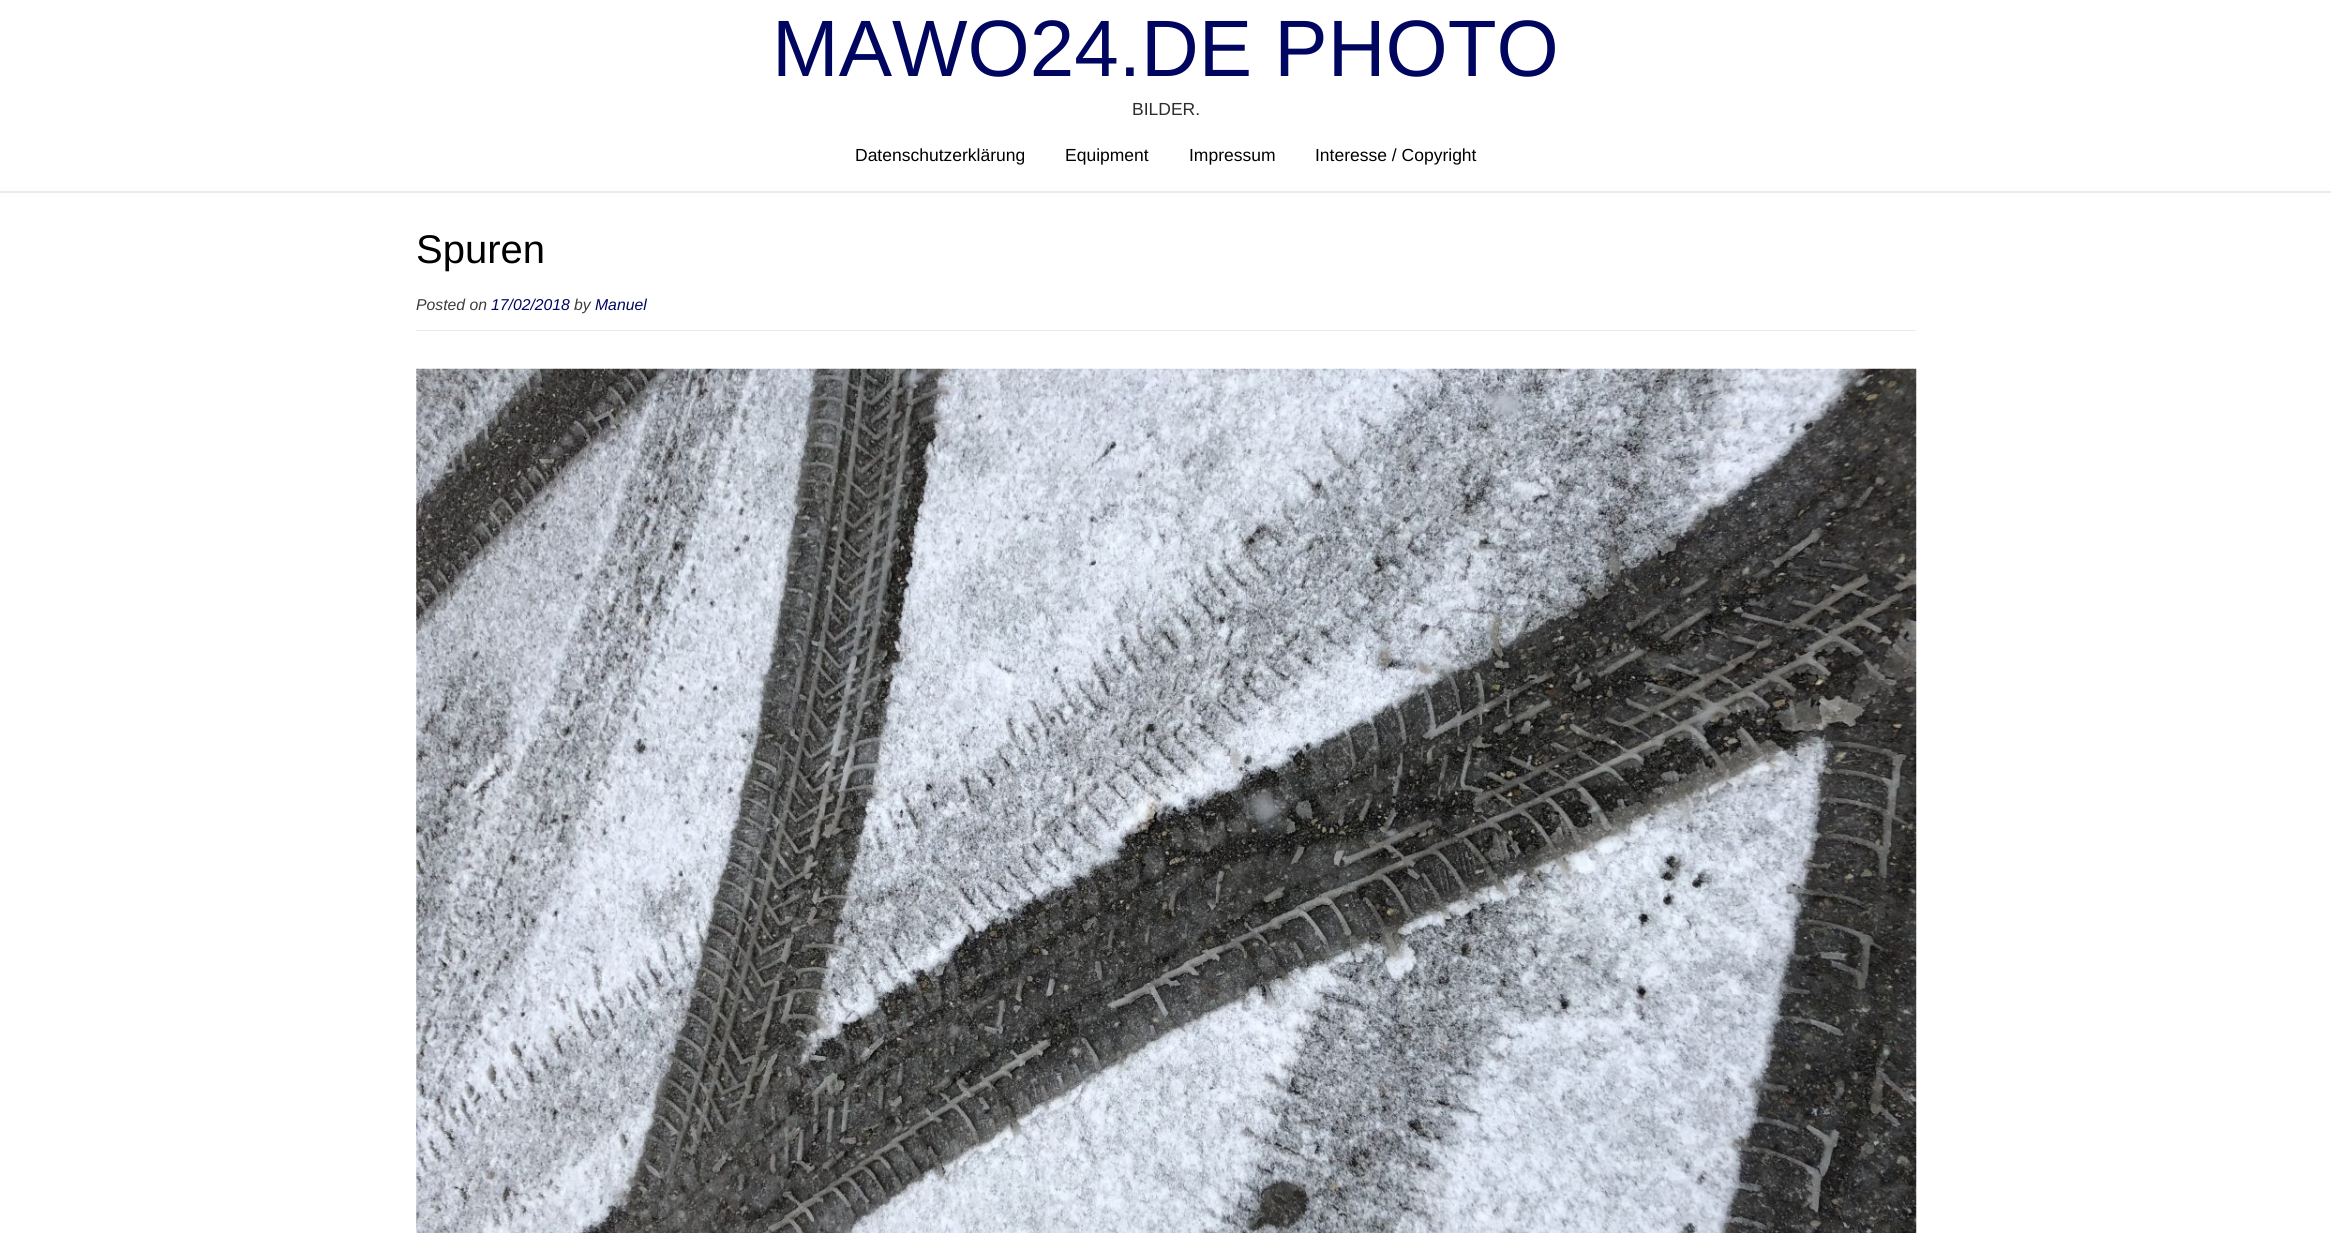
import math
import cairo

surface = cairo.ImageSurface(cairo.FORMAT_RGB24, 2331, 1233)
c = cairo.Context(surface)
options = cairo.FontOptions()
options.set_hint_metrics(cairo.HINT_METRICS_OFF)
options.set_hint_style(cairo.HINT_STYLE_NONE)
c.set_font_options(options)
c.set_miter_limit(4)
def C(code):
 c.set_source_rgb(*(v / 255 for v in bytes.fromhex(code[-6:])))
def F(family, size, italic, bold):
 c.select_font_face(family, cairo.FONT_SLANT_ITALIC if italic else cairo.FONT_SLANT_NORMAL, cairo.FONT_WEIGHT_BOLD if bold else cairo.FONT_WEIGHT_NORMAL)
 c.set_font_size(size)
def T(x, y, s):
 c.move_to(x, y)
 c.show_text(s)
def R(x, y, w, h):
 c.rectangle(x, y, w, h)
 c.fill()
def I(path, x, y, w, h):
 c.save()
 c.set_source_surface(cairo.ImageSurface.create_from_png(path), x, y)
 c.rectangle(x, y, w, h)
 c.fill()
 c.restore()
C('ffffff')
c.paint()
C('ebebeb')
R(0,191,2331,2)
F('Liberation Sans',80,0,0)
C('000660')
T(772,76,'MAWO24.DE PHOTO')
F('Liberation Sans',17.5,0,0)
C('2d2d2d')
T(1132,115,'BILDER.')
C('000000')
T(855,161,'Datenschutzerklärung')
T(1065,161,'Equipment')
T(1189,161,'Impressum')
T(1315,161,'Interesse / Copyright')
C('ebebeb')
R(416,330,1500,1)
F('Liberation Sans',40,0,0)
C('000000')
T(416,263,'Spuren')
F('Liberation Sans',15.75,1,0)
C('3c3c3c')
T(416,310,'Posted on')
C('000660')
T(491,310,'17/02/2018')
C('3c3c3c')
T(574,310,'by')
C('000660')
T(595,310,'Manuel')
I('1.png',416,368,1501,865)
surface.write_to_png('o.png')
